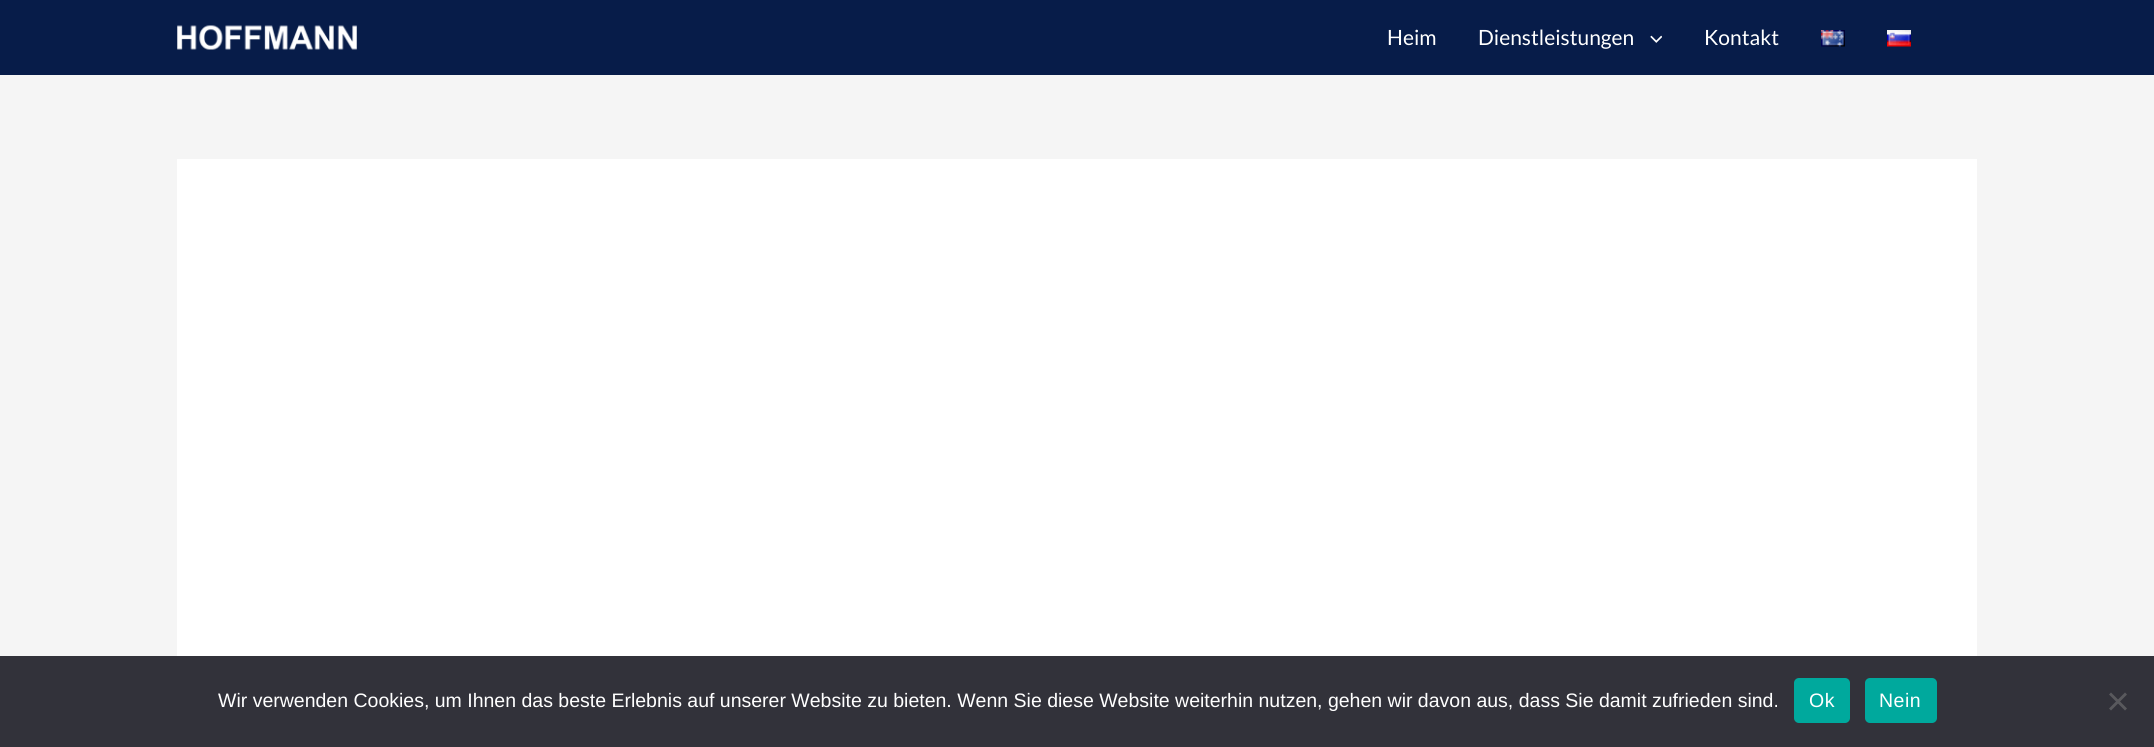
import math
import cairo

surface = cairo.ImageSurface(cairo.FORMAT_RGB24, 2154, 747)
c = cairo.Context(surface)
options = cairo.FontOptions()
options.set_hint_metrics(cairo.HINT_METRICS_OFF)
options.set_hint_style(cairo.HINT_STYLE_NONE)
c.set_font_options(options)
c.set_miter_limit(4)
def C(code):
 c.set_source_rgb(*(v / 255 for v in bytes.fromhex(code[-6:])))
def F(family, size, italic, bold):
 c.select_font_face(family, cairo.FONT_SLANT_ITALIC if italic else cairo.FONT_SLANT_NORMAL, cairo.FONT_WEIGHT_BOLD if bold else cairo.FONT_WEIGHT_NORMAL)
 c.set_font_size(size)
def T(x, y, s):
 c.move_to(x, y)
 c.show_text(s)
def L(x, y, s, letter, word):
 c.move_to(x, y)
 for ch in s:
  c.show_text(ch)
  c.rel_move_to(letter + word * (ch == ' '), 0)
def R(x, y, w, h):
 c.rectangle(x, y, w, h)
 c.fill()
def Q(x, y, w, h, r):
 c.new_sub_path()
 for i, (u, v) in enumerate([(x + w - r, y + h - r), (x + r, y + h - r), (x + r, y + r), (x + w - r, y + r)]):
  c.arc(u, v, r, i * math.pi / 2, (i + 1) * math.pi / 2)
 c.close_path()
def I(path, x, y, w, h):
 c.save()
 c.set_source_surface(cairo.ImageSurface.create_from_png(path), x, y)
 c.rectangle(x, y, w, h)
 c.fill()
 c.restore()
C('f5f5f5')
c.paint()
C('071c49')
R(0,0,2154,75)
I('1.png',177,25,180,25)
F('Lato',21,0,0)
C('ffffff')
T(1387,45,'Heim')
T(1478,45,'Dienstleistungen')
I('2.png',1650,35,12,8)
T(1704,45,'Kontakt')
I('3.png',1821,30,24,17)
I('4.png',1887,30,24,17)
R(177,159,1800,497)
C('32323a')
R(0,656,2154,91)
F('Liberation Sans',19.5,0,0)
C('ffffff')
T(218,707,'Wir verwenden Cookies, um Ihnen das beste Erlebnis auf unserer Website zu bieten. Wenn Sie diese Website weiterhin nutzen, gehen wir davon aus, dass Sie damit zufrieden sind.')
C('00a99d')
Q(1794,678,56,45,5)
c.fill()
C('ffffff')
L(1809,707,'Ok',.5,0)
C('00a99d')
Q(1865,678,72,45,5)
c.fill()
C('ffffff')
L(1879,707,'Nein',.5,0)
C('59595d')
c.new_path()
c.move_to(2125,692.5)
c.line_to(2127,694.5)
c.line_to(2111,710.5)
c.line_to(2109,708.5)
c.close_path()
c.fill()
c.new_path()
c.move_to(2109,694.5)
c.line_to(2111,692.5)
c.line_to(2127,708.5)
c.line_to(2125,710.5)
c.close_path()
c.fill()
surface.write_to_png('o.png')
